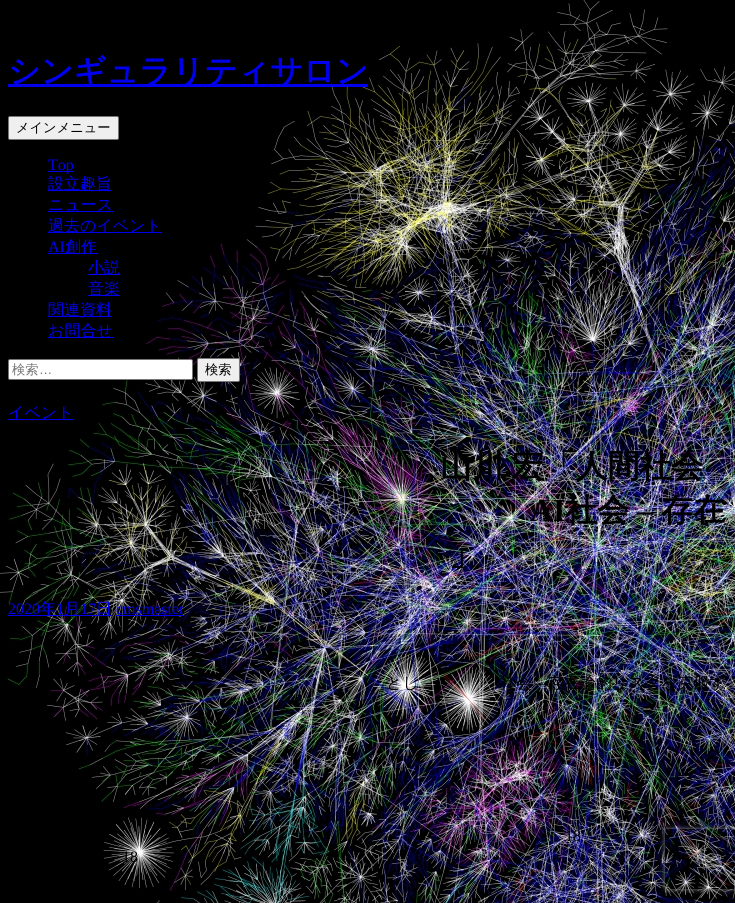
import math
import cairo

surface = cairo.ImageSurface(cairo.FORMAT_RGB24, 735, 903)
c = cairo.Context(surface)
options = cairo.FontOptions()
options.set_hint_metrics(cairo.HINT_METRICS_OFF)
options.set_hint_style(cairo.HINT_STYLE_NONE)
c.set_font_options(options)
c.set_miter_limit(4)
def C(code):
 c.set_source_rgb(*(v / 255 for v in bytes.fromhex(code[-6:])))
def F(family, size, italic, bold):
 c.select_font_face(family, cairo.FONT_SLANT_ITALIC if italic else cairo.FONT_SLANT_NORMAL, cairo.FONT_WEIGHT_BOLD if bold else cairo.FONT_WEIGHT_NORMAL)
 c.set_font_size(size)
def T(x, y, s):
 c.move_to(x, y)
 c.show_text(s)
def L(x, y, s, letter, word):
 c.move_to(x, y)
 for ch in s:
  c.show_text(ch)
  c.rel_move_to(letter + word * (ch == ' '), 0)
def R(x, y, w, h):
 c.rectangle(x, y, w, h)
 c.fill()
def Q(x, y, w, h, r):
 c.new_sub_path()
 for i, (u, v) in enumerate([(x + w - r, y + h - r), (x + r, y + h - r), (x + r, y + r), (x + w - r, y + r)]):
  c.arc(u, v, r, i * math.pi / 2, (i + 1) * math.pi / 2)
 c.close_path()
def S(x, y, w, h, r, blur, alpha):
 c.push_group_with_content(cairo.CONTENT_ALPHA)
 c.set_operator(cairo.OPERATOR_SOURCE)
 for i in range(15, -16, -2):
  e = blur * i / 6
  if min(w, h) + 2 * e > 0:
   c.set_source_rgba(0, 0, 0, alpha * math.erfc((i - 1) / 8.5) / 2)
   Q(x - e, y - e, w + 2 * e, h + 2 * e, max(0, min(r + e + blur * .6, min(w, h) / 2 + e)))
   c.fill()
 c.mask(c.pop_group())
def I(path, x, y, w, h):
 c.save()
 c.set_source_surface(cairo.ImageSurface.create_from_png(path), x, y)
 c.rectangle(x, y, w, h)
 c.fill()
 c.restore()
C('ffffff')
c.paint()
I('1.png',0,0,735,903)
C('0000ee')
R(8,84,360,3)
F('WenQuanYi Zen Hei',32,0,1)
T(8,82,'シンギュラリティサロン')
C('efefef')
Q(8.5,116.5,110,23,1.5)
c.fill_preserve()
C('767676')
c.set_line_width(1)
c.stroke()
F('WenQuanYi Zen Hei Medium',13.25,0,0)
C('000000')
T(16,132,'メインメニュー')
C('0000ee')
R(48,171,26,1)
F('Liberation Serif',16,0,0)
T(48,170,'Top')
R(48,190,64,1)
F('WenQuanYi Zen Hei Medium',16,0,0)
T(48,189,'設立趣旨')
T(48,210,'ニュース')
R(48,211,65,1)
R(48,232,114,1)
T(48,231,'過去のイベント')
F('Liberation Serif',16,0,0)
T(48,252,'AI')
R(48,253,49,1)
F('WenQuanYi Zen Hei Medium',16,0,0)
T(65,252,'創作')
R(88,274,32,1)
T(88,273,'小説')
R(88,295,32,1)
T(88,294,'音楽')
R(48,316,64,1)
T(48,315,'関連資料')
R(48,337,65,1)
T(48,336,'お問合せ')
C('ffffff')
Q(8.5,359.5,184,20,1.5)
c.fill_preserve()
C('767676')
c.stroke()
F('WenQuanYi Zen Hei Medium',13.25,0,0)
C('757575')
T(12,374,'検索')
F('Liberation Sans',13.25,0,0)
T(39,374,'…')
C('efefef')
Q(197.5,358.5,42,23,1.5)
c.fill_preserve()
C('767676')
c.stroke()
F('WenQuanYi Zen Hei Medium',13.25,0,0)
C('000000')
T(205,374,'検索')
C('0000ee')
R(8,419,66,1)
F('WenQuanYi Zen Hei Medium',16,0,0)
T(8,418,'イベント')
F('WenQuanYi Zen Hei',32,0,1)
C('000000')
L(440,477,'山川 宏「人間社会',0,-2)
F('Liberation Serif',32,0,1)
T(530,521,'AI')
F('WenQuanYi Zen Hei',32,0,1)
T(565,521,'社会')
F('Liberation Serif',32,0,1)
T(637,521,'–')
F('WenQuanYi Zen Hei',32,0,1)
T(661,521,'存在')
T(449,565,'」')
F('Liberation Serif',16,0,0)
C('0000ee')
T(8,614,'2020')
R(8,615,104,1)
F('WenQuanYi Zen Hei Medium',16,0,0)
T(40,614,'年')
F('Liberation Serif',16,0,0)
T(56,614,'1')
F('WenQuanYi Zen Hei Medium',16,0,0)
T(64,614,'月')
F('Liberation Serif',16,0,0)
T(80,614,'17')
F('WenQuanYi Zen Hei Medium',16,0,0)
T(96,614,'日')
F('Liberation Serif',16,0,0)
T(116,614,'cmsmaster')
R(116,615,68,1)
F('WenQuanYi Zen Hei Medium',16,0,0)
C('000000')
T(386,688,'とし')
T(500,688,'社会')
F('Liberation Serif',16,0,0)
T(536,688,'–')
F('WenQuanYi Zen Hei Medium',16,0,0)
T(548,688,'存在論的リスクを克服す')
T(549,841,'、')
F('Liberation Serif',16,0,0)
T(565,841,'18')
T(122,862,'18')
c.save()
c.set_fill_rule(cairo.FILL_RULE_EVEN_ODD)
c.new_path()
c.move_to(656,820)
c.line_to(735,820)
c.line_to(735,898)
c.line_to(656,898)
c.close_path()
c.move_to(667,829)
c.line_to(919,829)
c.curve_to(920,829,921,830,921,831)
c.line_to(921,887)
c.curve_to(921,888,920,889,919,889)
c.line_to(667,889)
c.curve_to(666,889,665,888,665,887)
c.line_to(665,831)
c.curve_to(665,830,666,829,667,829)
c.close_path()
c.clip()
C('808080')
S(665,829,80,60,2,2.5,1)
c.restore()
surface.write_to_png('o.png')
